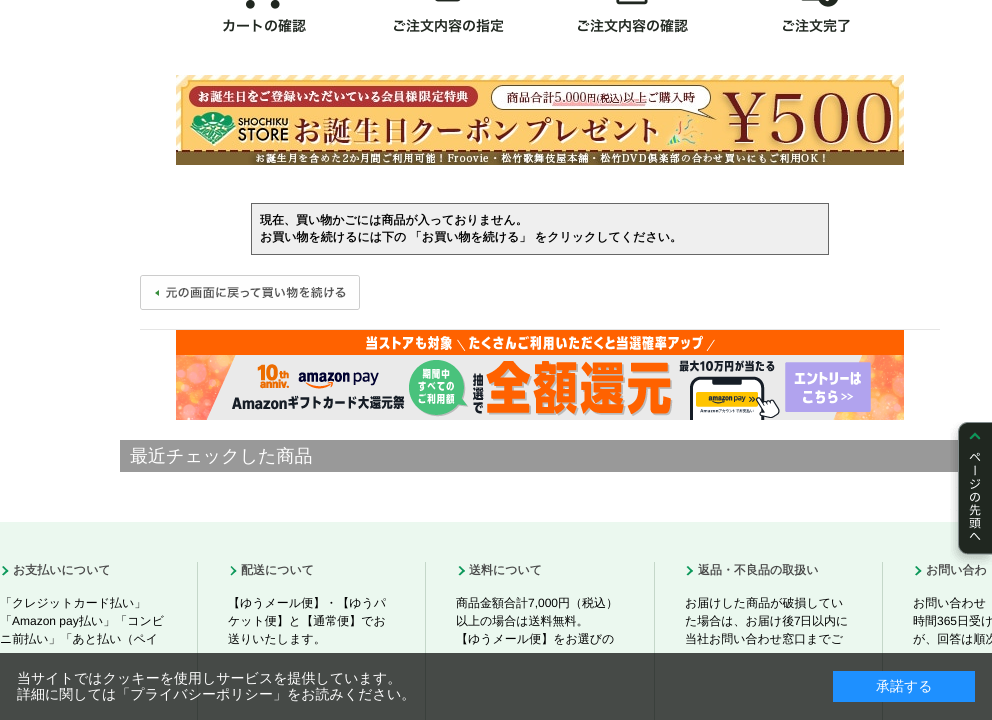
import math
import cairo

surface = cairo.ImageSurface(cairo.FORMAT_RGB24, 992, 720)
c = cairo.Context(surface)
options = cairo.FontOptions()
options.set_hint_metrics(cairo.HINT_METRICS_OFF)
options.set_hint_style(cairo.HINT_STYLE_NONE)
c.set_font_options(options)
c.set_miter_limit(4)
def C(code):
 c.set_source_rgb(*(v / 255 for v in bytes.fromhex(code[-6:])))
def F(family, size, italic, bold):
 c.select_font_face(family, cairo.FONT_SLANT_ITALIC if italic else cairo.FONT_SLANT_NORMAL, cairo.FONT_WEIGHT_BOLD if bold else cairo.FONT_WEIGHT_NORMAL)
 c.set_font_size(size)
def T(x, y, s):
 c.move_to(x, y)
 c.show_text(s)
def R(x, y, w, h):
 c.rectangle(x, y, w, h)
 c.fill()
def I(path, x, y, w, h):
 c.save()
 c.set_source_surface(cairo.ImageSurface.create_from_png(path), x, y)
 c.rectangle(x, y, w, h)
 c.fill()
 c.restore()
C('ffffff')
c.paint()
I('1.png',223,0,627,33)
I('2.png',176,75,728,90)
C('efefef')
c.rectangle(251.5,203.5,577,51)
c.fill_preserve()
C('666666')
c.set_line_width(1)
c.stroke()
F('WenQuanYi Zen Hei',12,0,1)
C('000000')
T(260,224,'現在、買い物かごには商品が入っておりません。')
T(260,241,'お買い物を続けるには下の 「お買い物を続ける」 をクリックしてください。')
I('3.png',140,275,220,35)
C('e5e5e5')
R(140,329,800,1)
I('4.png',176,330,728,90)
C('999999')
R(120,440,838,32)
F('WenQuanYi Zen Hei Medium',18,0,0)
C('ffffff')
T(130,462,'最近チェックした商品')
C('ebf8ef')
R(0,522,992,198)
I('5.png',950,422,42,143)
C('c4d7c9')
R(197,562,1,158)
C('0c985a')
c.new_path()
c.move_to(3.5,566)
c.line_to(8.5,571)
c.line_to(7,572)
c.line_to(2,567)
c.close_path()
c.fill()
c.new_path()
c.move_to(7,569.5)
c.line_to(8.5,571)
c.line_to(3.5,575.5)
c.line_to(2,574.5)
c.close_path()
c.fill()
F('WenQuanYi Zen Hei',12,0,1)
C('494949')
T(13,574,'お支払いについて')
F('WenQuanYi Zen Hei Medium',12,0,0)
C('000000')
T(0,607,'「クレジットカード払い」')
T(0,625,'「')
F('Liberation Sans',12,0,0)
T(12,625,'Amazon pay')
F('WenQuanYi Zen Hei Medium',12,0,0)
T(79,625,'払い」「コンビ')
T(0,643,'ニ前払い」「あと払い（ペイ')
C('c4d7c9')
R(425,562,1,158)
C('0c985a')
c.new_path()
c.move_to(231.5,566)
c.line_to(236.5,571)
c.line_to(235,572)
c.line_to(230.5,567)
c.close_path()
c.fill()
c.new_path()
c.move_to(235,569.5)
c.line_to(236.5,571)
c.line_to(231.5,575.5)
c.line_to(230.5,574.5)
c.close_path()
c.fill()
F('WenQuanYi Zen Hei',12,0,1)
C('494949')
T(241,574,'配送について')
F('WenQuanYi Zen Hei Medium',12,0,0)
C('000000')
T(228,607,'【ゆうメール便】・【ゆうパ')
T(228,625,'ケット便】と【通常便】でお')
T(228,643,'送りいたします。')
C('c4d7c9')
R(654,562,1,158)
C('0c985a')
c.new_path()
c.move_to(460,566)
c.line_to(465,571)
c.line_to(463.5,572)
c.line_to(458.5,567)
c.close_path()
c.fill()
c.new_path()
c.move_to(463.5,569.5)
c.line_to(465,571)
c.line_to(460,575.5)
c.line_to(458.5,574.5)
c.close_path()
c.fill()
F('WenQuanYi Zen Hei',12,0,1)
C('494949')
T(469,574,'送料について')
F('WenQuanYi Zen Hei Medium',12,0,0)
C('000000')
T(456,607,'商品金額合計')
F('Liberation Sans',12,0,0)
T(528,607,'7,000')
F('WenQuanYi Zen Hei Medium',12,0,0)
T(558,607,'円（税込）')
T(456,625,'以上の場合は送料無料。')
T(456,643,'【ゆうメール便】をお選びの')
C('c4d7c9')
R(882,562,1,158)
C('0c985a')
c.new_path()
c.move_to(688,566)
c.line_to(693,571)
c.line_to(691.5,572)
c.line_to(686.5,567)
c.close_path()
c.fill()
c.new_path()
c.move_to(691.5,569.5)
c.line_to(693,571)
c.line_to(688,575.5)
c.line_to(686.5,574.5)
c.close_path()
c.fill()
F('WenQuanYi Zen Hei',12,0,1)
C('494949')
T(698,574,'返品・不良品の取扱い')
F('WenQuanYi Zen Hei Medium',12,0,0)
C('000000')
T(685,607,'お届けした商品が破損してい')
T(685,625,'た場合は、お届け後')
F('Liberation Sans',12,0,0)
T(794,625,'7')
F('WenQuanYi Zen Hei Medium',12,0,0)
T(800,625,'日以内に')
T(685,643,'当社お問い合わせ窓口までご')
C('0c985a')
c.new_path()
c.move_to(916.5,566)
c.line_to(921.5,571)
c.line_to(920,572)
c.line_to(915,567)
c.close_path()
c.fill()
c.new_path()
c.move_to(920,569.5)
c.line_to(921.5,571)
c.line_to(916.5,575.5)
c.line_to(915,574.5)
c.close_path()
c.fill()
F('WenQuanYi Zen Hei',12,0,1)
C('494949')
T(926,574,'お問い合わ')
F('WenQuanYi Zen Hei Medium',12,0,0)
C('000000')
T(913,607,'お問い合わせ')
T(913,625,'時間')
F('Liberation Sans',12,0,0)
T(937,625,'365')
F('WenQuanYi Zen Hei Medium',12,0,0)
T(957,625,'日受け')
T(913,643,'が、回答は順次')
c.set_source_rgba(0,0,0,0.7)
R(0,653,992,67)
F('WenQuanYi Zen Hei Medium',14,0,0)
C('ffffff')
T(17,683,'当サイトではクッキーを使用しサービスを提供しています。')
T(17,699,'詳細に関しては「プライバシーポリシー」をお読みください。')
C('1e90ff')
R(833,671,142,31)
C('ffffff')
T(876,691,'承諾する')
surface.write_to_png('o.png')
